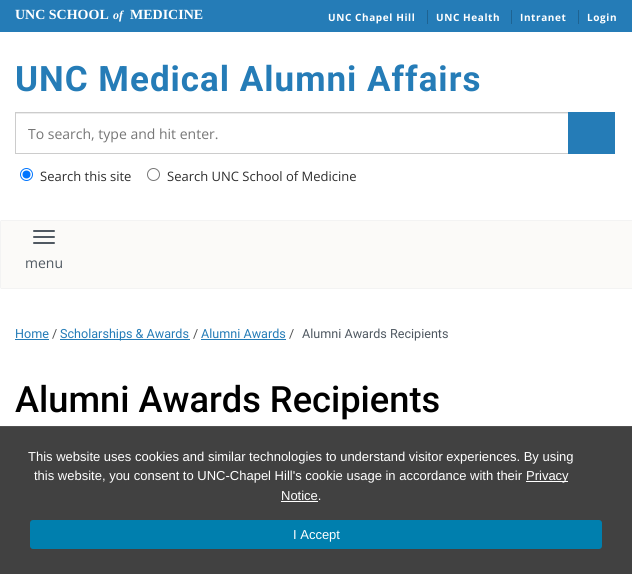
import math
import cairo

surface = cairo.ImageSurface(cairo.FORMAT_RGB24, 632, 574)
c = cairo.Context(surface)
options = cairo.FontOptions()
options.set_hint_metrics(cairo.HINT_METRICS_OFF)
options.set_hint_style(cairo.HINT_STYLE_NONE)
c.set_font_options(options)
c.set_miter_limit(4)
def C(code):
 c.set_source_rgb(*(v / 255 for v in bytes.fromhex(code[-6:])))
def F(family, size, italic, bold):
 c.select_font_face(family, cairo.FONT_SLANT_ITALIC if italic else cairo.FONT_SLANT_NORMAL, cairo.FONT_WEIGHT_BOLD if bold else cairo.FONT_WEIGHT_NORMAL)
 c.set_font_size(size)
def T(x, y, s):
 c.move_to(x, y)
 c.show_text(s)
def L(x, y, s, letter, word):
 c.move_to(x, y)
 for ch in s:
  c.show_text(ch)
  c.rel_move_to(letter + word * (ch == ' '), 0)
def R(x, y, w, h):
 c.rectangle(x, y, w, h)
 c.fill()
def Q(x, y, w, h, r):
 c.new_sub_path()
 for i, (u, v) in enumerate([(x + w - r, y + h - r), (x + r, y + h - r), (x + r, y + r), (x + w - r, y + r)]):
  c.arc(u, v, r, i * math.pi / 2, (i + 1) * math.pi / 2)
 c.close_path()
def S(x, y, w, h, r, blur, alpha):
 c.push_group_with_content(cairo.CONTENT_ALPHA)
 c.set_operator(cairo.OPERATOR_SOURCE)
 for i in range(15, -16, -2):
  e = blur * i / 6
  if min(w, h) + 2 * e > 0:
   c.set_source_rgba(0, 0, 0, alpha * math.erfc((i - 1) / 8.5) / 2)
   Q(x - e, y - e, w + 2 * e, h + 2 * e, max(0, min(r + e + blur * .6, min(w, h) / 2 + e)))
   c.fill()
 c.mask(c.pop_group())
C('ffffff')
c.paint()
C('257cb7')
R(0,0,632,32)
F('Liberation Serif',14,0,1)
C('ffffff')
T(15,19,'UNC SCHOOL')
F('Liberation Serif',12,1,1)
T(113,19,'of')
F('Liberation Serif',14,0,1)
T(130,19,'MEDICINE')
F('Open Sans',10,0,1)
L(328,21,'UNC Chapel Hill',.6,0)
C('1e6392')
R(427,10,1,14)
C('ffffff')
L(436,21,'UNC Health',.6,0)
C('1e6392')
R(511,10,1,14)
C('ffffff')
L(520,21,'Intranet',.6,0)
C('1e6392')
R(578,10,1,14)
C('ffffff')
L(587,21,'Login',.6,0)
F('Roboto',35,0,1)
C('257cb7')
L(15,91,'UNC Medical Alumni Affairs',1,0)
C('ececec')
R(16,113,552,1)
c.rectangle(15.5,112.5,553,41)
C('cccccc')
c.set_line_width(1)
c.stroke()
F('Open Sans',14,0,0)
C('767676')
T(28,139,'To search, type and hit enter.')
C('257cb7')
R(568,112,47,42)
c.new_path()
c.arc(26.5,174.5,6,0,2 * math.pi)
C('0075ff')
c.stroke()
c.arc(26.5,174.5,4,0,2 * math.pi)
c.fill()
F('Open Sans',13,0,0)
C('2e2e2e')
T(40,181,'Search this site')
c.new_path()
c.arc(153.5,174.5,6,0,2 * math.pi)
C('767676')
c.stroke()
C('2e2e2e')
T(167,181,'Search UNC School of Medicine')
C('bdbdbd')
S(1,221,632,67,0,.5,.75)
C('fbfaf8')
R(1,221,631,67)
C('505962')
Q(33,230,22,2,1)
c.fill()
Q(33,236,22,2,1)
c.fill()
Q(33,242,22,2,1)
c.fill()
F('Open Sans',14,0,0)
T(25,268,'menu')
F('Roboto',12.6,0,0)
C('257cb7')
T(15,338,'Home')
R(15,339,34,1)
C('4f4f4f')
T(52,338,'/')
C('257cb7')
R(60,339,130,1)
T(60,338,'Scholarships & Awards')
C('4f4f4f')
T(193,338,'/')
C('257cb7')
T(201,338,'Alumni Awards')
R(201,339,85,1)
C('4f4f4f')
T(289,338,'/')
C('505962')
T(302,338,'Alumni Awards Recipients')
F('Roboto Medium',36.25,0,0)
C('000000')
T(15,412,'Alumni Awards Recipients')
C('414141')
R(0,427,632,147)
C('515151')
R(0,426,632,1)
F('Liberation Sans',13,0,0)
C('ffffff')
T(28,461,'This website uses cookies and similar technologies to understand visitor experiences. By using')
T(34,480,'this website, you consent to UNC-Chapel Hill\'s cookie usage in accordance with their')
R(526,481,42,1)
T(526,480,'Privacy')
T(281,500,'Notice.')
R(281,501,37,1)
C('007fae')
Q(30,520,572,29,3)
c.fill()
C('ffffff')
T(293,539,'I Accept')
surface.write_to_png('o.png')
